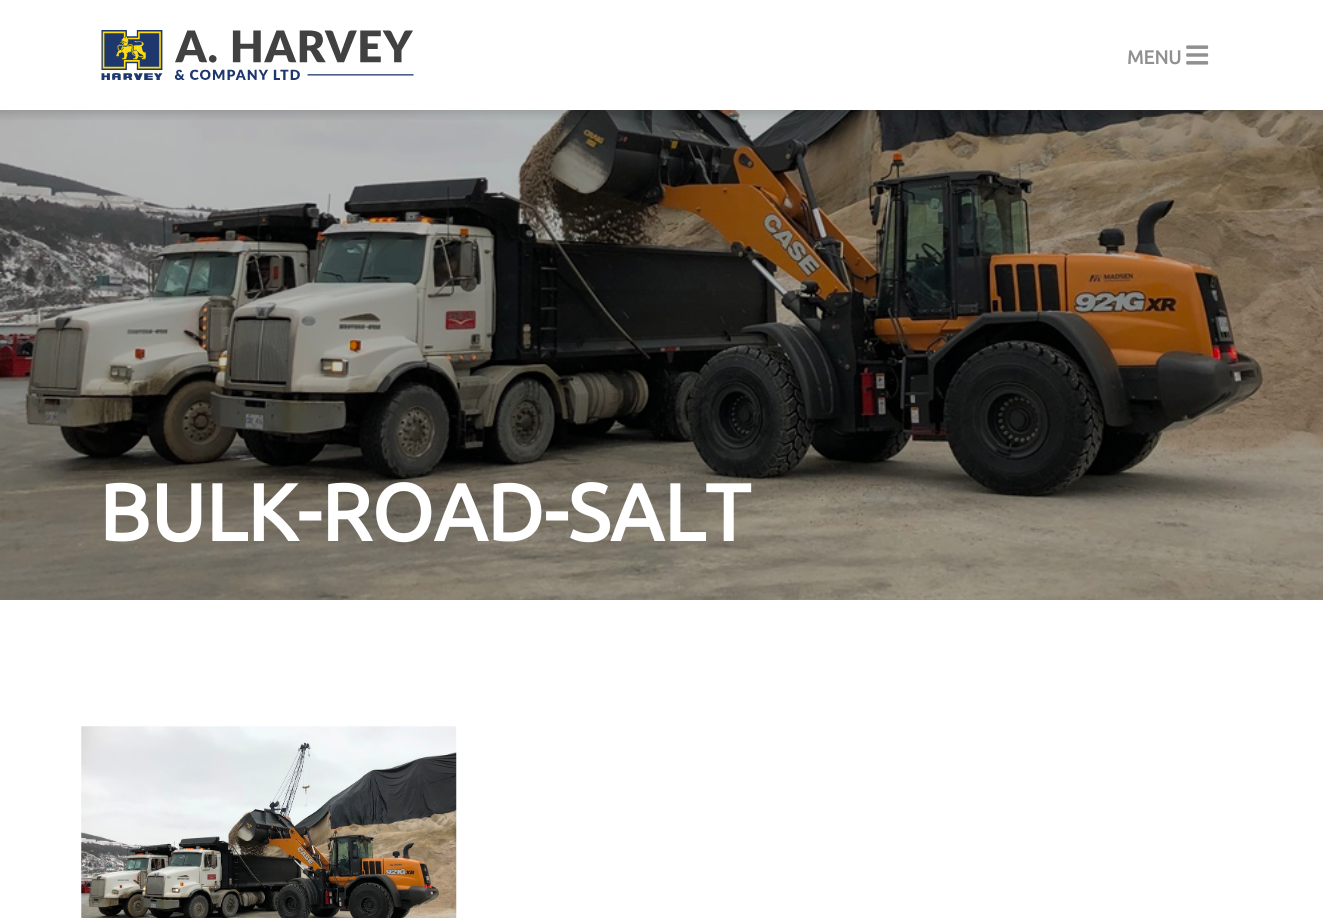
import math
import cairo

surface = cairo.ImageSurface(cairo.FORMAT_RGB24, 1323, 918)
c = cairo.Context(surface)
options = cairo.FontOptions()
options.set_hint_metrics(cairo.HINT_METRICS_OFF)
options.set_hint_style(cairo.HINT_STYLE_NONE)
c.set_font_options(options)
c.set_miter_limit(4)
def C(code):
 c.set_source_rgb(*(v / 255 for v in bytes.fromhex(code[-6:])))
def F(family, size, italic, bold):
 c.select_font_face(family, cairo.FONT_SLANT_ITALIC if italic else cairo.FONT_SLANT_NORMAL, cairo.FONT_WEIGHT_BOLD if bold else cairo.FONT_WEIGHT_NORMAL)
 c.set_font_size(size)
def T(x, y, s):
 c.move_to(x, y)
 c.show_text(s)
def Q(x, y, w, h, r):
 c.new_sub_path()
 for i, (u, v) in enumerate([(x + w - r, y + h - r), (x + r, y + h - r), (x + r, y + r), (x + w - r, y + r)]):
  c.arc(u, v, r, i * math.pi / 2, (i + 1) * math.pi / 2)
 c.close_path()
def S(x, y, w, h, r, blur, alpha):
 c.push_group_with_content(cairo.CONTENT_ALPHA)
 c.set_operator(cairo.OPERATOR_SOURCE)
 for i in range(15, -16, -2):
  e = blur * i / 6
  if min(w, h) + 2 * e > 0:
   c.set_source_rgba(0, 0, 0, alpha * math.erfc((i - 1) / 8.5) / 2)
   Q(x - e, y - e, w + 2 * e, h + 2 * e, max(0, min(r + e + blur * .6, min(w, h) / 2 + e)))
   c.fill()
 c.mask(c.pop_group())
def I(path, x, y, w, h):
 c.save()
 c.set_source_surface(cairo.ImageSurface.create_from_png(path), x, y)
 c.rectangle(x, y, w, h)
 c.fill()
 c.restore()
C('ffffff')
c.paint()
I('3.png',0,110,1323,490)
c.save()
c.rectangle(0,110,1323,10)
c.clip()
C('000000')
S(-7,-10,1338,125,0,4.5,.14)
c.restore()
I('1.png',101,30,313,50)
F('Ubuntu',19,0,1)
C('919091')
T(1127,64,'MENU')
I('2.png',1186,45,23,20)
F('Ubuntu',80,0,1)
C('ffffff')
T(99,541,'BULK-ROAD-SALT')
I('4.png',81,726,376,192)
surface.write_to_png('o.png')
